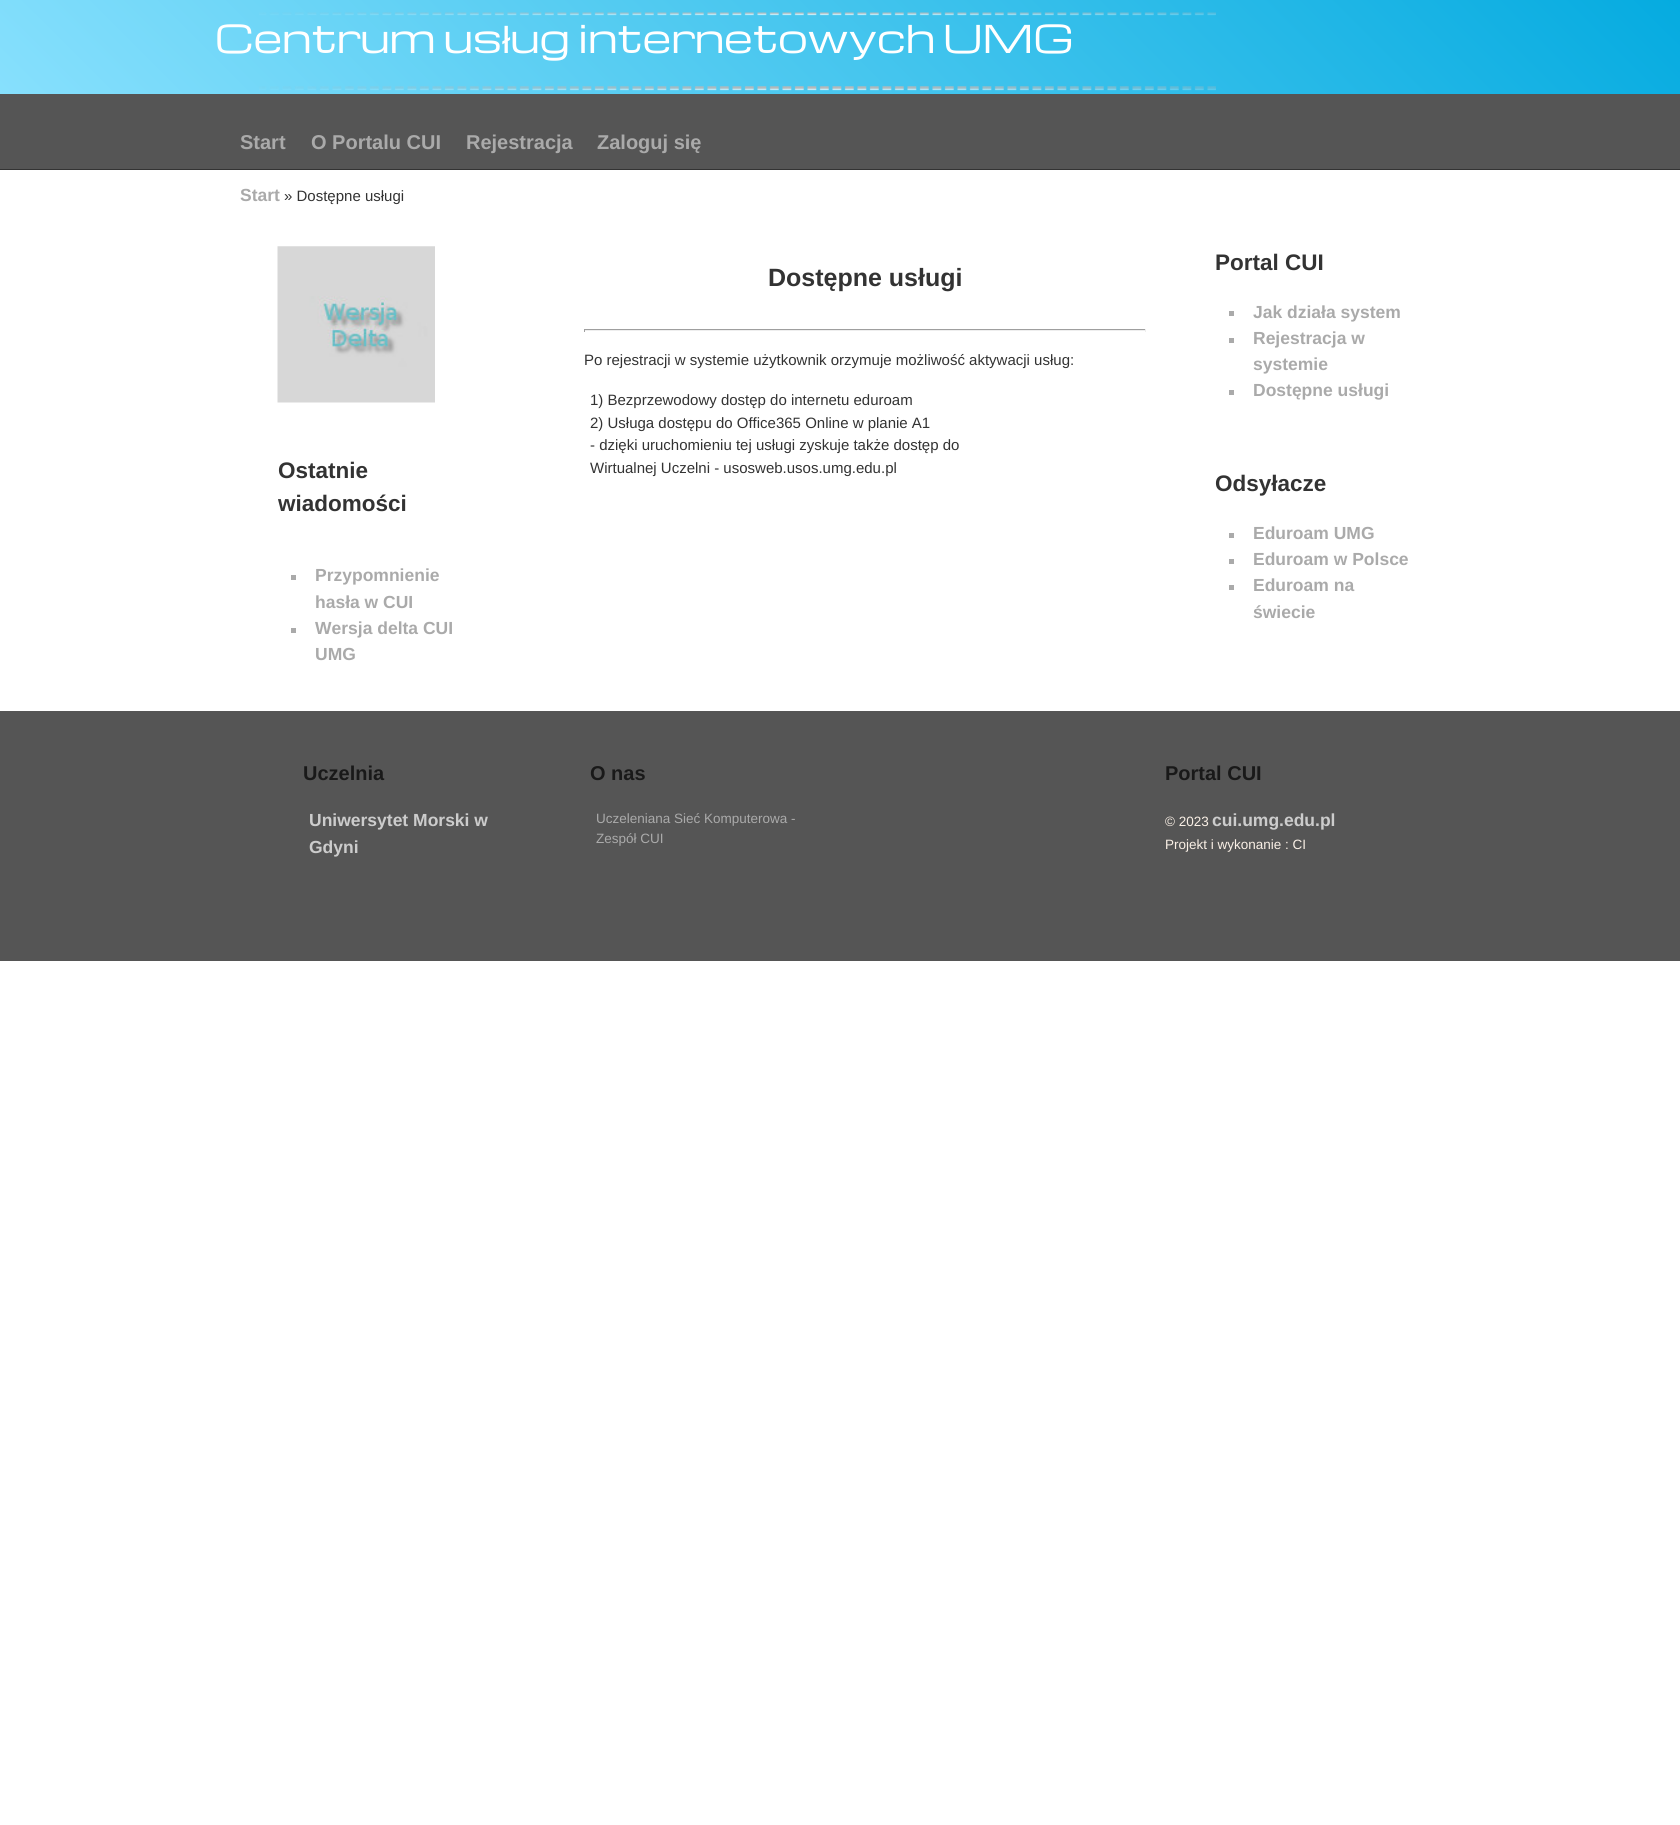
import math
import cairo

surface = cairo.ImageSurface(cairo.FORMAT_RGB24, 1680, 1825)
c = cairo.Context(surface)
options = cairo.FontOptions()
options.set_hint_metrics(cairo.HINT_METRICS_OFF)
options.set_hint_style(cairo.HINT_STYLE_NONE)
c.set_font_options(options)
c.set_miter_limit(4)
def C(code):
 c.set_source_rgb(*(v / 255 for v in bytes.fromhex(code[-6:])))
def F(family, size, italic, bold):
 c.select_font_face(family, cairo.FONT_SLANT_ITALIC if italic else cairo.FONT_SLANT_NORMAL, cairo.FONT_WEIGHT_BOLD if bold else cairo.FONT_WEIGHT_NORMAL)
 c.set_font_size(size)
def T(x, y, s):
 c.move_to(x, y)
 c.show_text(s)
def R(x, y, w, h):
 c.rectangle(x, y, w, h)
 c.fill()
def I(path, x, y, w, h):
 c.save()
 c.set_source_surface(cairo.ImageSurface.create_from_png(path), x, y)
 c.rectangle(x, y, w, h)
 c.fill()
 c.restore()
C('ffffff')
c.paint()
gradient = cairo.LinearGradient(397,490,1283,-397)
gradient.add_color_stop_rgba(0,0.529,0.878,0.992,1)
gradient.add_color_stop_rgba(.4,0.325,0.796,0.945,1)
gradient.add_color_stop_rgba(1,0.02,0.671,0.878,1)
c.set_source(gradient)
R(0,0,1680,94)
I('1.png',259,12,957,79)
F('Michroma',37.5,0,0)
C('ffffff')
T(215,53,'Centrum us ug internetowych UMG')
F('Liberation Sans',37.5,0,0)
T(502,53,'ł')
C('555555')
R(0,94,1680,75)
C('333333')
R(0,169,1680,1)
F('Liberation Sans',20,0,1)
C('aaaaaa')
T(240,149,'Start')
T(311,149,'O Portalu CUI')
T(466,149,'Rejestracja')
T(597,149,'Zaloguj się')
F('Liberation Sans',17.5,0,1)
T(240,201,'Start')
F('Liberation Sans',15,0,0)
C('333333')
T(284,201,'» Dostępne usługi')
F('Liberation Sans',25,0,1)
T(768,286,'Dostępne usługi')
C('9f9f9f')
R(584,329,562,1)
C('eeeeee')
R(1145,329,1,3)
R(584,330,562,1)
C('9f9f9f')
R(584,329,1,3)
F('Liberation Sans',15,0,0)
C('333333')
T(584,365,'Po rejestracji w systemie użytkownik orzymuje możliwość aktywacji usług:')
T(590,405,'1) Bezprzewodowy dostęp do internetu eduroam')
T(590,428,'2) Usługa dostępu do Office365 Online w planie A1')
T(590,450,'- dzięki uruchomieniu tej usługi zyskuje także dostęp do')
T(590,473,'Wirtualnej Uczelni - usosweb.usos.umg.edu.pl')
F('Liberation Sans',22.5,0,1)
T(1215,270,'Portal CUI')
C('aaaaaa')
R(1229,311,5,5)
F('Liberation Sans',17.5,0,1)
T(1253,318,'Jak działa system')
R(1229,338,5,5)
T(1253,344,'Rejestracja w')
T(1253,370,'systemie')
R(1229,390,5,5)
T(1253,396,'Dostępne usługi')
F('Liberation Sans',22.5,0,1)
C('333333')
T(1215,491,'Odsyłacze')
C('aaaaaa')
R(1229,533,5,5)
F('Liberation Sans',17.5,0,1)
T(1253,539,'Eduroam UMG')
R(1229,559,5,5)
T(1253,565,'Eduroam w Polsce')
R(1229,585,5,5)
T(1253,591,'Eduroam na')
T(1253,618,'świecie')
I('2.png',277,246,158,157)
F('Liberation Sans',22.5,0,1)
C('333333')
T(278,478,'Ostatnie')
T(278,511,'wiadomości')
C('aaaaaa')
R(291,575,5,5)
F('Liberation Sans',17.5,0,1)
T(315,581,'Przypomnienie')
T(315,608,'hasła w CUI')
R(291,628,5,5)
T(315,634,'Wersja delta CUI')
T(315,660,'UMG')
C('555555')
R(0,711,1680,250)
F('Liberation Sans',20,0,1)
C('191919')
T(303,780,'Uczelnia')
F('Liberation Sans',17.5,0,1)
C('cccccc')
T(309,826,'Uniwersytet Morski w')
T(309,853,'Gdyni')
F('Liberation Sans',20,0,1)
C('191919')
T(590,780,'O nas')
F('Liberation Sans',13.5,0,0)
C('aaaaaa')
T(596,823,'Uczeleniana Sieć Komputerowa -')
T(596,843,'Zespół CUI')
F('Liberation Sans',20,0,1)
C('191919')
T(1165,780,'Portal CUI')
F('Liberation Sans',13.5,0,0)
C('faf0e6')
T(1165,826,'© 2023')
F('Liberation Sans',17.5,0,1)
C('cccccc')
T(1212,826,'cui.umg.edu.pl')
F('Liberation Sans',13.5,0,0)
C('faf0e6')
T(1165,849,'Projekt i wykonanie : CI')
surface.write_to_png('o.png')
